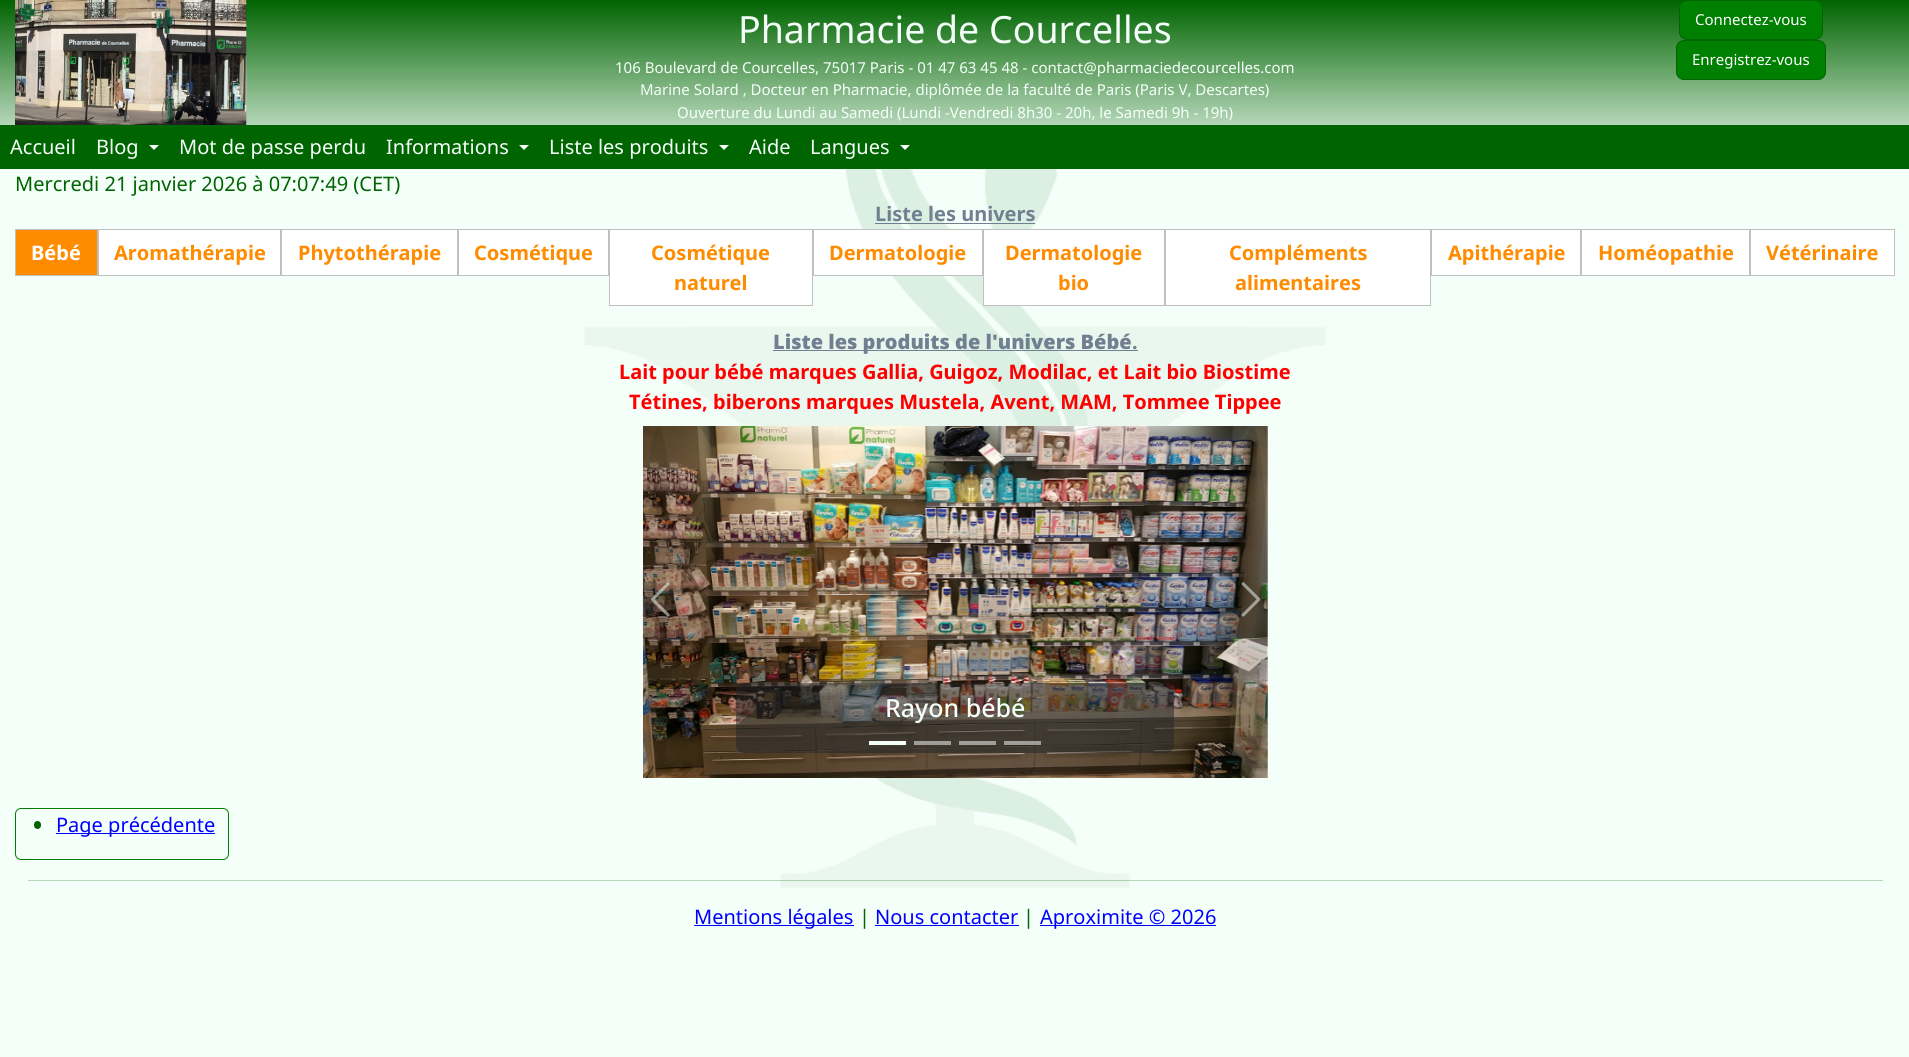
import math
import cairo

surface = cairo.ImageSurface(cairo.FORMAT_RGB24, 1909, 1057)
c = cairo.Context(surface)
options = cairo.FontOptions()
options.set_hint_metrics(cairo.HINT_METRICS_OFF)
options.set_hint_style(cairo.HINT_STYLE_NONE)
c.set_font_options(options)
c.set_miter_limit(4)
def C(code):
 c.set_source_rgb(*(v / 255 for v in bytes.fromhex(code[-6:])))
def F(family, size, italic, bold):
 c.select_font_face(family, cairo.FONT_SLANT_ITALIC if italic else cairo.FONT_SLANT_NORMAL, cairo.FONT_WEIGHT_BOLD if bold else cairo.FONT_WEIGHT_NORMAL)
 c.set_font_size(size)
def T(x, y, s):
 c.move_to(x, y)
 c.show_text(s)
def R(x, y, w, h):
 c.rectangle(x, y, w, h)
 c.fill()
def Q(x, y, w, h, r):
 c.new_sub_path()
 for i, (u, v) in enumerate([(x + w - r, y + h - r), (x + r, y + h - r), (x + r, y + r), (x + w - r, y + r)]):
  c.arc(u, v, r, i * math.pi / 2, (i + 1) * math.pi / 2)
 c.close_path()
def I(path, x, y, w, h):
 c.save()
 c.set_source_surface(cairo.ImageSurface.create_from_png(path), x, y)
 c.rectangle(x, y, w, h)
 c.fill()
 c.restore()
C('f5fffa')
c.paint()
I('1.png',584,169,742,719)
gradient = cairo.LinearGradient(955,0,955,169)
gradient.add_color_stop_rgba(0,0,0.392,0,1)
gradient.add_color_stop_rgba(1,0.961,1,0.98,1)
c.set_source(gradient)
R(0,0,1909,125)
I('2.png',15,0,232,125)
F('Noto Sans',37.5,0,0)
C('f5fffa')
T(738,43,'Pharmacie de Courcelles')
F('Noto Sans',15,0,0)
T(615,73,'106 Boulevard de Courcelles, 75017 Paris - 01 47 63 45 48 - contact@pharmaciedecourcelles.com')
T(640,95,'Marine Solard , Docteur en Pharmacie, diplômée de la faculté de Paris (Paris V, Descartes)')
T(677,118,'Ouverture du Lundi au Samedi (Lundi -Vendredi 8h30 - 20h, le Samedi 9h - 19h)')
C('008000')
Q(1679.5,.5,143,39,7.5)
c.fill_preserve()
C('006400')
c.set_line_width(1)
c.stroke()
C('ffffff')
T(1695,25,'Connectez-vous')
C('008000')
Q(1676.5,40.5,149,39,7.5)
c.fill_preserve()
C('006400')
c.stroke()
C('ffffff')
T(1692,65,'Enregistrez-vous')
C('006400')
R(0,125,1909,44)
F('Noto Sans',20,0,0)
C('f5fffa')
T(10,154,'Accueil')
T(96,154,'Blog')
c.new_path()
c.move_to(149,145)
c.line_to(159,145)
c.line_to(154,150)
c.close_path()
c.fill()
T(179,154,'Mot de passe perdu')
T(386,154,'Informations')
c.new_path()
c.move_to(519,145)
c.line_to(529,145)
c.line_to(524,150)
c.close_path()
c.fill()
T(549,154,'Liste les produits')
c.new_path()
c.move_to(719,145)
c.line_to(729,145)
c.line_to(724,150)
c.close_path()
c.fill()
T(749,154,'Aide')
T(810,154,'Langues')
c.new_path()
c.move_to(900,145)
c.line_to(910,145)
c.line_to(905,150)
c.close_path()
c.fill()
C('006400')
T(15,191,'Mercredi 21 janvier 2026 à 07:07:49 (CET)')
F('Noto Sans',20,0,1)
C('708090')
T(875,221,'Liste les univers')
R(875,223,160,1)
C('ff8c00')
c.rectangle(15.5,229.5,82,46)
c.fill_preserve()
C('c0c0c0')
c.stroke()
C('ffffff')
T(31,260,'Bébé')
c.rectangle(98.5,229.5,182,46)
c.fill_preserve()
C('c0c0c0')
c.stroke()
C('ff8c00')
T(114,260,'Aromathérapie')
C('ffffff')
c.rectangle(281.5,229.5,176,46)
c.fill_preserve()
C('c0c0c0')
c.stroke()
C('ff8c00')
T(298,260,'Phytothérapie')
C('ffffff')
c.rectangle(458.5,229.5,150,46)
c.fill_preserve()
C('c0c0c0')
c.stroke()
C('ff8c00')
T(474,260,'Cosmétique')
C('ffffff')
c.rectangle(609.5,229.5,203,76)
c.fill_preserve()
C('c0c0c0')
c.stroke()
C('ff8c00')
T(651,260,'Cosmétique')
T(674,290,'naturel')
C('ffffff')
c.rectangle(813.5,229.5,169,46)
c.fill_preserve()
C('c0c0c0')
c.stroke()
C('ff8c00')
T(829,260,'Dermatologie')
C('ffffff')
c.rectangle(983.5,229.5,181,76)
c.fill_preserve()
C('c0c0c0')
c.stroke()
C('ff8c00')
T(1005,260,'Dermatologie')
T(1058,290,'bio')
C('ffffff')
c.rectangle(1165.5,229.5,265,76)
c.fill_preserve()
C('c0c0c0')
c.stroke()
C('ff8c00')
T(1229,260,'Compléments')
T(1235,290,'alimentaires')
C('ffffff')
c.rectangle(1431.5,229.5,149,46)
c.fill_preserve()
C('c0c0c0')
c.stroke()
C('ff8c00')
T(1448,260,'Apithérapie')
C('ffffff')
c.rectangle(1581.5,229.5,168,46)
c.fill_preserve()
C('c0c0c0')
c.stroke()
C('ff8c00')
T(1598,260,'Homéopathie')
C('ffffff')
c.rectangle(1750.5,229.5,144,46)
c.fill_preserve()
C('c0c0c0')
c.stroke()
C('ff8c00')
T(1766,260,'Vétérinaire')
C('708090')
R(773,350,365,1)
F('Noto Sans Black',20,0,0)
T(773,349,'Liste les produits de l\'univers Bébé')
F('Noto Sans',20,0,1)
T(1132,349,'.')
C('ff0000')
T(619,379,'Lait pour bébé marques Gallia, Guigoz, Modilac, et Lait bio Biostime')
T(629,409,'Tétines, biberons marques Mustela, Avent, MAM, Tommee Tippee')
I('4.png',643,426,625,352)
c.set_source_rgba(0,0,0,0.1)
c.new_path()
c.move_to(658,426.5)
c.curve_to(666.5,426.5,673.5,505,673.5,602)
c.curve_to(673.5,699,666.5,777.5,658,777.5)
c.curve_to(649.5,777.5,642.5,699,642.5,602)
c.curve_to(642.5,505,649.5,426.5,658,426.5)
c.close_path()
c.fill()
I('3.png',651,582,19,35)
c.set_source_rgba(0.129,0.145,0.161,0.5)
Q(736,683,438,70,8)
c.fill()
F('Noto Sans Medium',25,0,0)
C('f5fffa')
T(885,717,'Rayon bébé')
c.set_source_rgba(0,0,0,0.1)
c.new_path()
c.move_to(1252,426.5)
c.curve_to(1260.5,426.5,1267.5,505,1267.5,602)
c.curve_to(1267.5,699,1260.5,777.5,1252,777.5)
c.curve_to(1243.5,777.5,1236.5,699,1236.5,602)
c.curve_to(1236.5,505,1243.5,426.5,1252,426.5)
c.close_path()
c.fill()
I('5.png',1241,582,20,35)
C('f5fffa')
R(869,741,37,4)
c.set_source_rgba(1,1,1,0.5)
R(914,741,37,4)
C('a19d98')
R(959,741,37,4)
c.set_source_rgba(1,1,1,0.5)
R(1004,741,37,4)
Q(15.5,808.5,213,51,5.5)
C('008000')
c.stroke()
C('006400')
Q(34,821,7,8,3.5)
c.fill()
C('0000ff')
R(56,833,159,1)
F('Noto Sans',20,0,0)
T(56,832,'Page précédente')
c.set_source_rgba(0,0.392,0,0.25)
R(28,880,1855,1)
C('0000ff')
R(694,925,160,1)
T(694,924,'Mentions légales')
C('006400')
T(859,924,'|')
C('0000ff')
T(875,924,'Nous contacter')
R(875,925,144,1)
C('006400')
T(1023,924,'|')
C('0000ff')
R(1040,925,176,1)
T(1040,924,'Aproximite © 2026')
surface.write_to_png('o.png')
